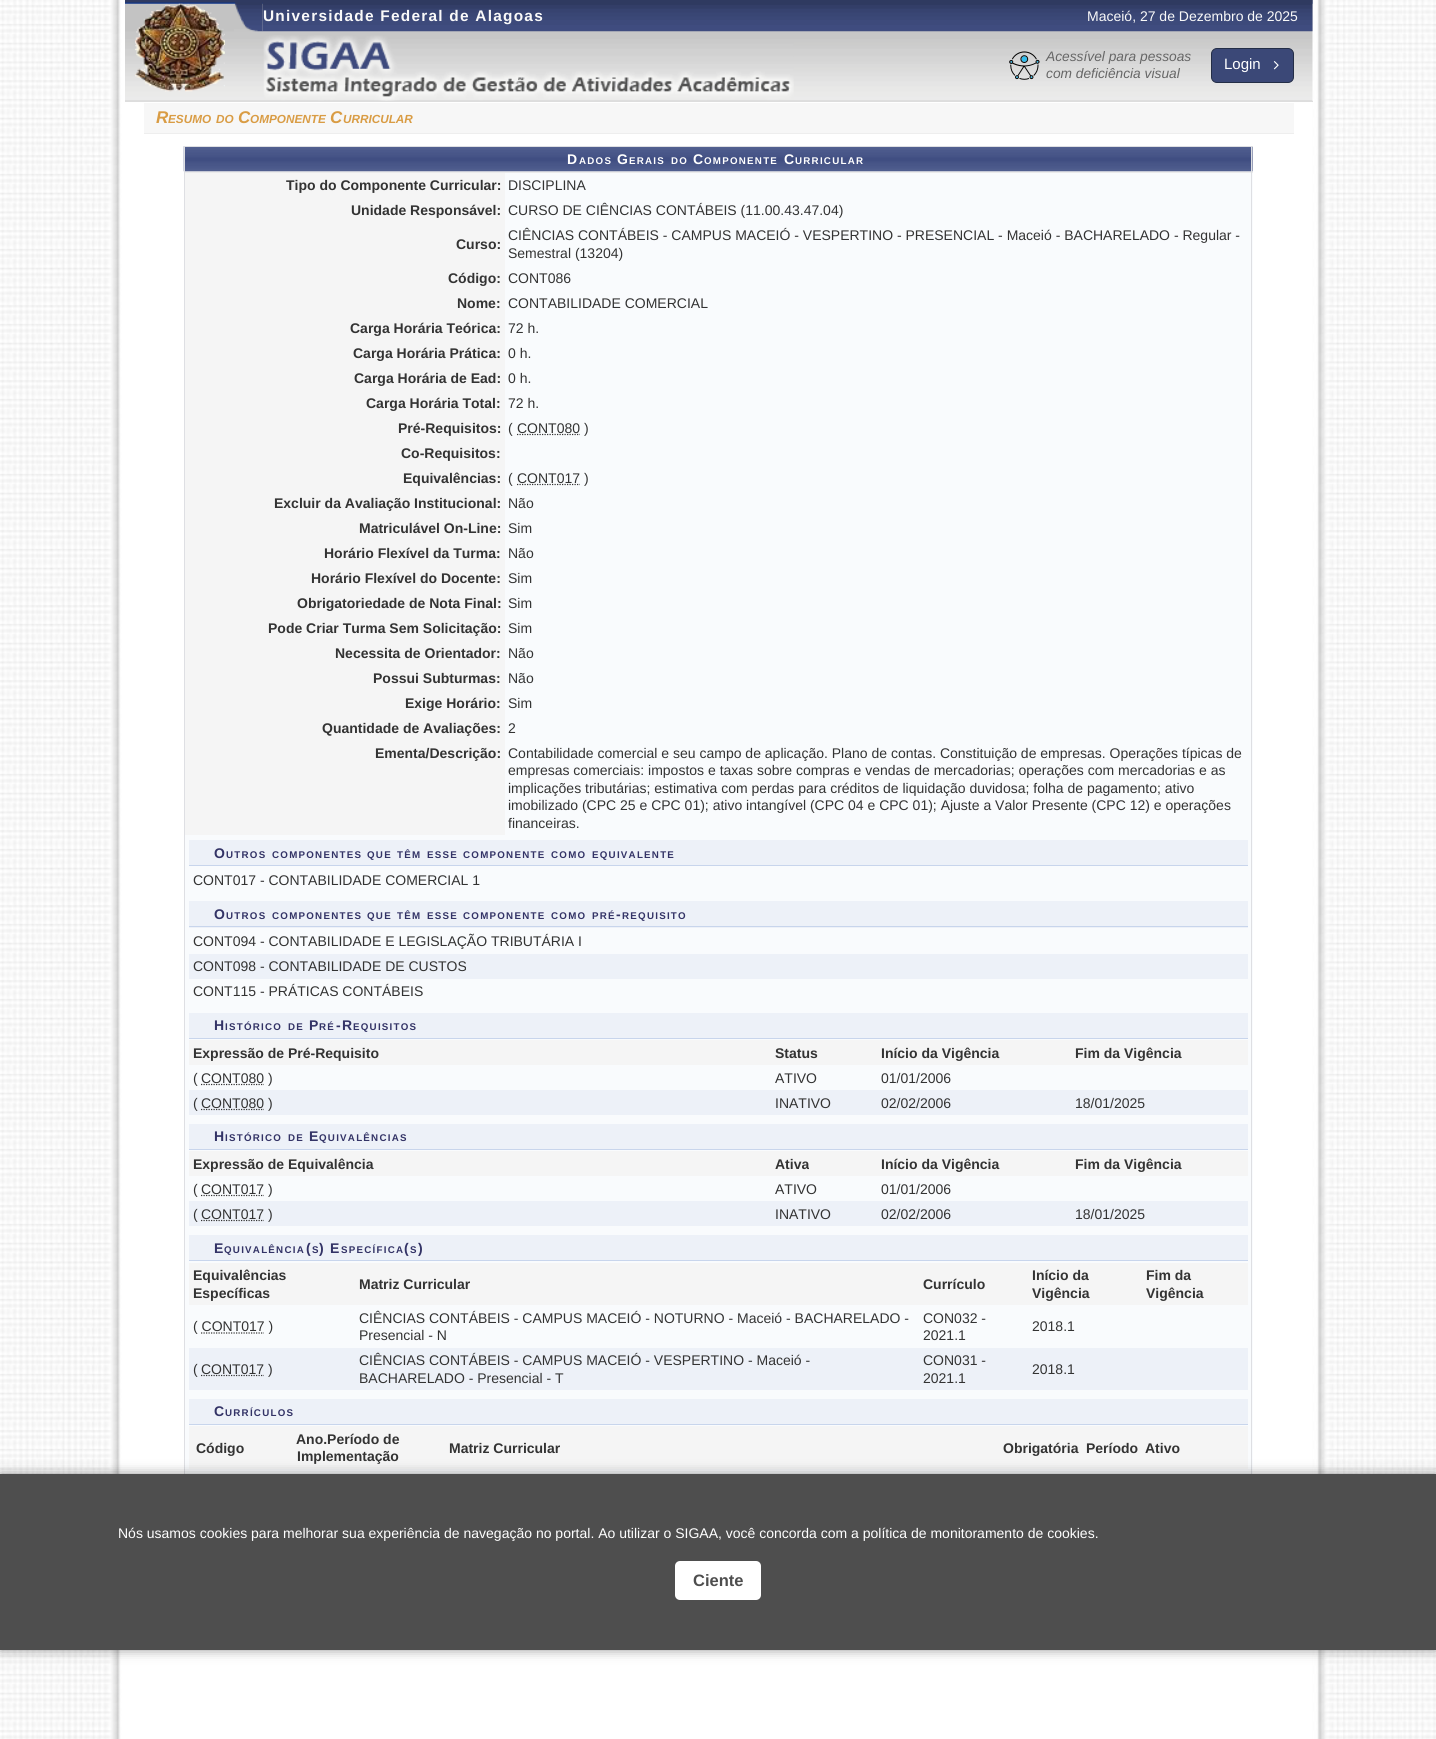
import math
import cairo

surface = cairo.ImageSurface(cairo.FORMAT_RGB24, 1436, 1739)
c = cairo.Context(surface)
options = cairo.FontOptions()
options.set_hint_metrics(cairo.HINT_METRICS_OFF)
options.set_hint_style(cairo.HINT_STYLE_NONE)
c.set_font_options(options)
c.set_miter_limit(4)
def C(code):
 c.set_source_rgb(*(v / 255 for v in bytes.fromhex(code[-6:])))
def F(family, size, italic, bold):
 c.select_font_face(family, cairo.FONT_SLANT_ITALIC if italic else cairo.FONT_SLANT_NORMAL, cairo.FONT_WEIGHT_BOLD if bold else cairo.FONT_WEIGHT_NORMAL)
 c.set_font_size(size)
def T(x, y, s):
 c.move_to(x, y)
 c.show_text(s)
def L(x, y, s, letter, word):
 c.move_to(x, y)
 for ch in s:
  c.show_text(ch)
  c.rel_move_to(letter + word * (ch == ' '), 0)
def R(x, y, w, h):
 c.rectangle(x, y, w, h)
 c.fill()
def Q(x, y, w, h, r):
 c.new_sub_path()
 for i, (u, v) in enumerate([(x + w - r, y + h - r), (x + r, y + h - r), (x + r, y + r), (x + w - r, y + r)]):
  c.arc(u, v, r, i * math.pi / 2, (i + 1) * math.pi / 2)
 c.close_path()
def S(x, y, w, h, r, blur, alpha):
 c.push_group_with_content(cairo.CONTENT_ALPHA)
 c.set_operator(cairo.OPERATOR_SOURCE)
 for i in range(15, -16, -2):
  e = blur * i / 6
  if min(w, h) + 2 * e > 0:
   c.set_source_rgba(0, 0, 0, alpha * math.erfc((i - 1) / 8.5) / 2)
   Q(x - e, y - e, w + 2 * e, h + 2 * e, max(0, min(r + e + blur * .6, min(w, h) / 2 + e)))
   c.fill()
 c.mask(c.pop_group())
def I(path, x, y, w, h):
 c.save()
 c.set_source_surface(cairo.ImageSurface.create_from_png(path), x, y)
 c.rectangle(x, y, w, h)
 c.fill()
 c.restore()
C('ffffff')
c.paint()
I('1.png',0,0,1436,1739)
I('2.png',125,0,1188,101)
C('dddddd')
R(125,101,1188,1)
I('3.png',234,2,29,30)
I('4.png',135,3,90,89)
I('5.png',262,0,1051,32)
F('Liberation Sans',15.4,0,1)
C('f9f9f9')
L(263,21,'Universidade Federal de Alagoas',1.25,0)
F('Liberation Sans',14,0,0)
T(1087,21,'Maceió, 27 de Dezembro de 2025')
I('6.png',263,35,531,66)
I('7.png',1009,51,31,29)
F('Liberation Sans',13.75,1,0)
C('666666')
T(1046,61,'Acessível para pessoas')
T(1046,78,'com deficiência visual')
C('3b4877')
Q(1211.5,48.5,82,34,5.5)
c.fill_preserve()
C('242e47')
c.set_line_width(1)
c.stroke()
F('Liberation Sans',15,0,0)
C('ffffff')
T(1224,69,'Login')
I('8.png',1273,61,6,9)
C('f7f7f7')
R(144,103,1150,30)
C('eeeeee')
R(144,133,1150,1)
F('Liberation Sans',17,1,1)
C('d99c44')
T(156,123,'R')
F('Liberation Sans',11.75,1,1)
T(168,123,'ESUMO')
T(216,123,'DO')
F('Liberation Sans',17,1,1)
T(238,123,'C')
F('Liberation Sans',11.75,1,1)
T(250,123,'OMPONENTE')
F('Liberation Sans',17,1,1)
T(330,123,'C')
F('Liberation Sans',11.75,1,1)
T(343,123,'URRICULAR')
C('ebebeb')
R(185,147,1068,26)
I('9.png',183,146,1070,26)
C('dedfe3')
R(184,146,1069,1)
C('f9fbfd')
R(185,173,1068,1301)
C('dedfe3')
R(1251,146,1,1328)
R(184,146,1,1328)
F('Liberation Sans',14,0,1)
C('ffffff')
L(567,164,'D',1.25,0)
F('Liberation Sans',9.75,0,1)
L(579,164,'ADOS',1.25,0)
F('Liberation Sans',14,0,1)
L(617,164,'G',1.25,0)
F('Liberation Sans',9.75,0,1)
L(629,164,'ERAIS',1.25,0)
L(671,164,'DO',1.25,0)
F('Liberation Sans',14,0,1)
L(693,164,'C',1.25,0)
F('Liberation Sans',9.75,0,1)
L(704,164,'OMPONENTE',1.25,0)
F('Liberation Sans',14,0,1)
L(784,164,'C',1.25,0)
F('Liberation Sans',9.75,0,1)
L(795,164,'URRICULAR',1.25,0)
C('f5f5f5')
R(185,173,320,662)
F('Liberation Sans',14,0,1)
C('333333')
T(286,190,'Tipo do Componente Curricular:')
F('Liberation Sans',14,0,0)
T(508,190,'DISCIPLINA')
F('Liberation Sans',14,0,1)
T(351,215,'Unidade Responsável:')
F('Liberation Sans',14,0,0)
T(508,215,'CURSO DE CIÊNCIAS CONTÁBEIS (11.00.43.47.04)')
F('Liberation Sans',14,0,1)
T(456,249,'Curso:')
F('Liberation Sans',14,0,0)
T(508,240,'CIÊNCIAS CONTÁBEIS - CAMPUS MACEIÓ - VESPERTINO - PRESENCIAL - Maceió - BACHARELADO - Regular -')
T(508,258,'Semestral (13204)')
F('Liberation Sans',14,0,1)
T(448,283,'Código:')
F('Liberation Sans',14,0,0)
T(508,283,'CONT086')
F('Liberation Sans',14,0,1)
T(457,308,'Nome:')
F('Liberation Sans',14,0,0)
T(508,308,'CONTABILIDADE COMERCIAL')
F('Liberation Sans',14,0,1)
T(350,333,'Carga Horária Teórica:')
F('Liberation Sans',14,0,0)
T(508,333,'72 h.')
F('Liberation Sans',14,0,1)
T(353,358,'Carga Horária Prática:')
F('Liberation Sans',14,0,0)
T(508,358,'0 h.')
F('Liberation Sans',14,0,1)
T(354,383,'Carga Horária de Ead:')
F('Liberation Sans',14,0,0)
T(508,383,'0 h.')
F('Liberation Sans',14,0,1)
T(366,408,'Carga Horária Total:')
F('Liberation Sans',14,0,0)
T(508,408,'72 h.')
F('Liberation Sans',14,0,1)
T(398,433,'Pré-Requisitos:')
F('Liberation Sans',14,0,0)
T(508,433,'(')
c.new_path()
c.move_to(517,434.5)
c.line_to(580,434.5)
c.set_line_width(1.2)
c.set_dash([1.25,1.25])
c.stroke()
T(517,433,'CONT080 )')
F('Liberation Sans',14,0,1)
T(401,458,'Co-Requisitos:')
T(403,483,'Equivalências:')
F('Liberation Sans',14,0,0)
T(508,483,'(')
c.new_path()
c.move_to(517,484.5)
c.line_to(580,484.5)
c.stroke()
T(517,483,'CONT017 )')
F('Liberation Sans',14,0,1)
T(274,508,'Excluir da Avaliação Institucional:')
F('Liberation Sans',14,0,0)
T(508,508,'Não')
F('Liberation Sans',14,0,1)
T(359,533,'Matriculável On-Line:')
F('Liberation Sans',14,0,0)
T(508,533,'Sim')
F('Liberation Sans',14,0,1)
T(324,558,'Horário Flexível da Turma:')
F('Liberation Sans',14,0,0)
T(508,558,'Não')
F('Liberation Sans',14,0,1)
T(311,583,'Horário Flexível do Docente:')
F('Liberation Sans',14,0,0)
T(508,583,'Sim')
F('Liberation Sans',14,0,1)
T(297,608,'Obrigatoriedade de Nota Final:')
F('Liberation Sans',14,0,0)
T(508,608,'Sim')
F('Liberation Sans',14,0,1)
T(268,633,'Pode Criar Turma Sem Solicitação:')
F('Liberation Sans',14,0,0)
T(508,633,'Sim')
F('Liberation Sans',14,0,1)
T(335,658,'Necessita de Orientador:')
F('Liberation Sans',14,0,0)
T(508,658,'Não')
F('Liberation Sans',14,0,1)
T(373,683,'Possui Subturmas:')
F('Liberation Sans',14,0,0)
T(508,683,'Não')
F('Liberation Sans',14,0,1)
T(405,708,'Exige Horário:')
F('Liberation Sans',14,0,0)
T(508,708,'Sim')
F('Liberation Sans',14,0,1)
T(322,733,'Quantidade de Avaliações:')
F('Liberation Sans',14,0,0)
T(508,733,'2')
F('Liberation Sans',14,0,1)
T(375,758,'Ementa/Descrição:')
F('Liberation Sans',14,0,0)
T(508,758,'Contabilidade comercial e seu campo de aplicação. Plano de contas. Constituição de empresas. Operações típicas de')
T(508,775,'empresas comerciais: impostos e taxas sobre compras e vendas de mercadorias; operações com mercadorias e as')
T(508,793,'implicações tributárias; estimativa com perdas para créditos de liquidação duvidosa; folha de pagamento; ativo')
T(508,810,'imobilizado (CPC 25 e CPC 01); ativo intangível (CPC 04 e CPC 01); Ajuste a Valor Presente (CPC 12) e operações')
T(508,828,'financeiras.')
C('edf1f8')
R(189,840,1059,25)
C('c8d5ec')
R(189,865,1059,1)
F('Liberation Sans',14,0,1)
C('333366')
L(214,858,'O',1.25,0)
F('Liberation Sans',9.75,0,1)
L(226,858,'UTROS',1.25,0)
L(272,858,'COMPONENTES',1.25,0)
L(367,858,'QUE',1.25,0)
L(397,858,'TÊM',1.25,0)
L(427,858,'ESSE',1.25,0)
L(463,858,'COMPONENTE',1.25,0)
L(551,858,'COMO',1.25,0)
L(592,858,'EQUIVALENTE',1.25,0)
F('Liberation Sans',14,0,0)
C('333333')
T(193,885,'CONT017 - CONTABILIDADE COMERCIAL 1')
C('edf1f8')
R(189,901,1059,27)
C('c8d5ec')
R(189,926,1059,1)
F('Liberation Sans',14,0,1)
C('333366')
L(214,919,'O',1.25,0)
F('Liberation Sans',9.75,0,1)
L(226,919,'UTROS',1.25,0)
L(272,919,'COMPONENTES',1.25,0)
L(367,919,'QUE',1.25,0)
L(397,919,'TÊM',1.25,0)
L(427,919,'ESSE',1.25,0)
L(463,919,'COMPONENTE',1.25,0)
L(551,919,'COMO',1.25,0)
L(592,919,'PRÉ',1.25,0)
F('Liberation Sans',14,0,1)
L(616,919,'-',1.25,0)
F('Liberation Sans',9.75,0,1)
L(622,919,'REQUISITO',1.25,0)
F('Liberation Sans',14,0,0)
C('333333')
T(193,946,'CONT094 - CONTABILIDADE E LEGISLAÇÃO TRIBUTÁRIA I')
C('edf1f8')
R(189,954,1059,25)
C('333333')
T(193,971,'CONT098 - CONTABILIDADE DE CUSTOS')
T(193,996,'CONT115 - PRÁTICAS CONTÁBEIS')
C('edf1f8')
R(189,1013,1059,25)
C('c8d5ec')
R(189,1038,1059,1)
F('Liberation Sans',14,0,1)
C('333366')
L(214,1030,'H',1.25,0)
F('Liberation Sans',9.75,0,1)
L(225,1030,'ISTÓRICO',1.25,0)
L(288,1030,'DE',1.25,0)
F('Liberation Sans',14,0,1)
L(309,1030,'P',1.25,0)
F('Liberation Sans',9.75,0,1)
L(319,1030,'RÉ',1.25,0)
F('Liberation Sans',14,0,1)
L(336,1030,'-R',1.25,0)
F('Liberation Sans',9.75,0,1)
L(353,1030,'EQUISITOS',1.25,0)
C('f5f5f5')
R(189,1040,1059,25)
F('Liberation Sans',14,0,1)
C('333333')
T(193,1058,'Expressão de Pré-Requisito')
T(775,1058,'Status')
T(881,1058,'Início da Vigência')
T(1075,1058,'Fim da Vigência')
F('Liberation Sans',14,0,0)
T(193,1083,'(')
c.new_path()
c.move_to(201,1084.5)
c.line_to(264,1084.5)
c.stroke()
T(201,1083,'CONT080 )')
T(775,1083,'ATIVO')
T(881,1083,'01/01/2006')
C('edf1f8')
R(189,1090,1059,25)
C('333333')
T(193,1108,'(')
c.new_path()
c.move_to(201,1109.5)
c.line_to(264,1109.5)
c.stroke()
T(201,1108,'CONT080 )')
T(775,1108,'INATIVO')
T(881,1108,'02/02/2006')
T(1075,1108,'18/01/2025')
C('edf1f8')
R(189,1124,1059,25)
C('c8d5ec')
R(189,1149,1059,1)
F('Liberation Sans',14,0,1)
C('333366')
L(214,1141,'H',1.25,0)
F('Liberation Sans',9.75,0,1)
L(225,1141,'ISTÓRICO',1.25,0)
L(288,1141,'DE',1.25,0)
F('Liberation Sans',14,0,1)
L(309,1141,'E',1.25,0)
F('Liberation Sans',9.75,0,1)
L(319,1141,'QUIVALÊNCIAS',1.25,0)
C('f5f5f5')
R(189,1151,1059,25)
F('Liberation Sans',14,0,1)
C('333333')
T(193,1169,'Expressão de Equivalência')
T(775,1169,'Ativa')
T(881,1169,'Início da Vigência')
T(1075,1169,'Fim da Vigência')
F('Liberation Sans',14,0,0)
T(193,1194,'(')
c.new_path()
c.move_to(201,1195.5)
c.line_to(264,1195.5)
c.stroke()
T(201,1194,'CONT017 )')
T(775,1194,'ATIVO')
T(881,1194,'01/01/2006')
C('edf1f8')
R(189,1201,1059,25)
C('333333')
T(193,1219,'(')
c.new_path()
c.move_to(201,1220.5)
c.line_to(264,1220.5)
c.stroke()
T(201,1219,'CONT017 )')
T(775,1219,'INATIVO')
T(881,1219,'02/02/2006')
T(1075,1219,'18/01/2025')
C('edf1f8')
R(189,1235,1059,25)
C('c8d5ec')
R(189,1260,1059,1)
F('Liberation Sans',14,0,1)
C('333366')
L(214,1253,'E',1.25,0)
F('Liberation Sans',9.75,0,1)
L(224,1253,'QUIVALÊNCIA',1.25,0)
F('Liberation Sans',14,0,1)
L(306,1253,'(',1.25,0)
F('Liberation Sans',9.75,0,1)
L(312,1253,'S',1.25,0)
F('Liberation Sans',14,0,1)
L(319,1253,') E',1.25,0)
F('Liberation Sans',9.75,0,1)
L(341,1253,'SPECÍFICA',1.25,0)
F('Liberation Sans',14,0,1)
L(404,1253,'(',1.25,0)
F('Liberation Sans',9.75,0,1)
L(410,1253,'S',1.25,0)
F('Liberation Sans',14,0,1)
L(418,1253,')',1.25,0)
C('f5f5f5')
R(189,1263,1059,42)
C('333333')
T(193,1280,'Equivalências')
T(193,1298,'Específicas')
T(359,1289,'Matriz Curricular')
T(923,1289,'Currículo')
T(1032,1280,'Início da')
T(1032,1298,'Vigência')
T(1146,1280,'Fim da')
T(1146,1298,'Vigência')
F('Liberation Sans',14,0,0)
T(193,1331,'( CONT017 )')
c.new_path()
c.move_to(201,1333)
c.line_to(264,1333)
c.stroke()
T(359,1323,'CIÊNCIAS CONTÁBEIS - CAMPUS MACEIÓ - NOTURNO - Maceió - BACHARELADO -')
T(359,1340,'Presencial - N')
T(923,1323,'CON032 -')
T(923,1340,'2021.1')
T(1032,1331,'2018.1')
C('edf1f8')
R(189,1348,1059,42)
C('333333')
T(193,1374,'(')
c.new_path()
c.move_to(201,1375.5)
c.line_to(264,1375.5)
c.stroke()
T(201,1374,'CONT017 )')
T(359,1365,'CIÊNCIAS CONTÁBEIS - CAMPUS MACEIÓ - VESPERTINO - Maceió -')
T(359,1383,'BACHARELADO - Presencial - T')
T(923,1365,'CON031 -')
T(923,1383,'2021.1')
T(1032,1374,'2018.1')
C('edf1f8')
R(189,1399,1059,25)
C('c8d5ec')
R(189,1424,1059,1)
F('Liberation Sans',14,0,1)
C('333366')
L(214,1416,'C',1.25,0)
F('Liberation Sans',9.75,0,1)
L(225,1416,'URRÍCULOS',1.25,0)
C('f5f5f5')
R(189,1426,1059,43)
F('Liberation Sans',14,0,1)
C('333333')
T(196,1453,'Código')
T(296,1444,'Ano.Período de')
T(297,1461,'Implementação')
T(449,1453,'Matriz Curricular')
T(1003,1453,'Obrigatória')
T(1086,1453,'Período')
T(1145,1453,'Ativo')
C('000000')
S(0,1474,1436,176,0,6,.4)
C('4e4e4e')
R(0,1474,1436,176)
F('Liberation Sans',14,0,0)
C('ffffff')
T(118,1538,'Nós usamos cookies para melhorar sua experiência de navegação no portal. Ao utilizar o SIGAA, você concorda com a política de monitoramento de cookies.')
Q(675,1561,86,39,5)
c.fill()
F('Liberation Sans',16.5,0,1)
C('4e4e4e')
T(693,1586,'Ciente')
surface.write_to_png('o.png')
